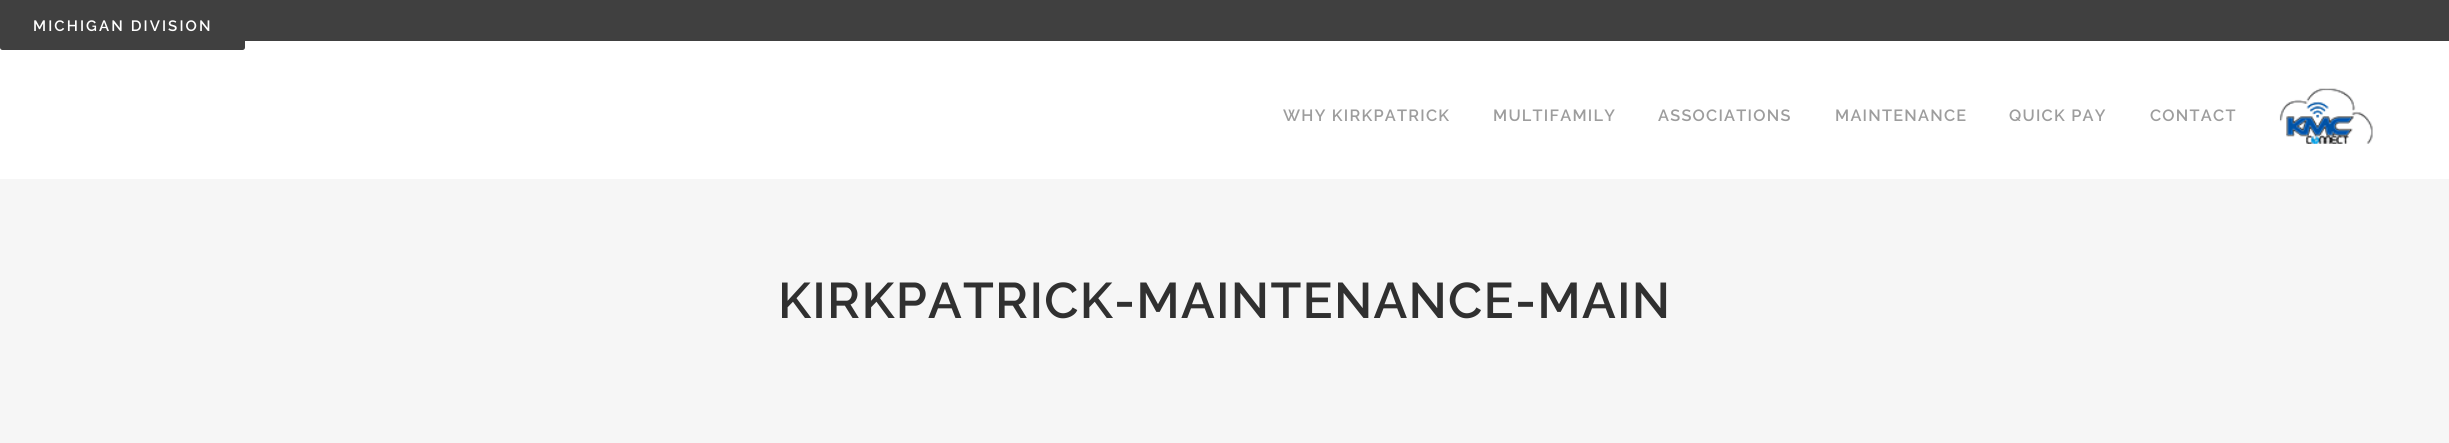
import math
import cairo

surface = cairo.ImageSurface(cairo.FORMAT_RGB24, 2449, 443)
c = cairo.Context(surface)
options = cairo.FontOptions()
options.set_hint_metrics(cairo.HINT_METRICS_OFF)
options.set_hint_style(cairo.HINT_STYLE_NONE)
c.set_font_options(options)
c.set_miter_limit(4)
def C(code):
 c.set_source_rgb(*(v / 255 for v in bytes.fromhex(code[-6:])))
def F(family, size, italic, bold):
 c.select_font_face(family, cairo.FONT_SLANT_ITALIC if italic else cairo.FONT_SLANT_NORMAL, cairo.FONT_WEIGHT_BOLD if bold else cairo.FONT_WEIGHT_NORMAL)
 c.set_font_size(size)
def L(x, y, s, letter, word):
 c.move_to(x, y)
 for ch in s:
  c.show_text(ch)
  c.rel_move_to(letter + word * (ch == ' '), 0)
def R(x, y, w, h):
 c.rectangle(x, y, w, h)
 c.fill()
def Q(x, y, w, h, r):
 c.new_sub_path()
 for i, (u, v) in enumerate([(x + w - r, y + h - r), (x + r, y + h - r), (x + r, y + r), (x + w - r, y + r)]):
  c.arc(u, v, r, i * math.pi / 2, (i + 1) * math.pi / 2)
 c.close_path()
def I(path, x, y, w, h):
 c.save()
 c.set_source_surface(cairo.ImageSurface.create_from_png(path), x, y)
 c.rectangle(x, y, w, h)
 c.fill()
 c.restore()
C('f6f6f6')
c.paint()
C('404040')
R(0,0,2449,41)
C('ffffff')
R(0,41,2449,138)
C('404040')
Q(0,3,245,47,2.5)
c.fill()
F('Raleway SemiBold',15,0,0)
C('ffffff')
L(33,31,'MICHIGAN DIVISION',2.1,0)
F('Raleway SemiBold',16.25,0,0)
C('9d9d9d')
L(1283,121,'WHY KIRKPATRICK',1.25,0)
L(1493,121,'MULTIFAMILY',1.25,0)
L(1658,121,'ASSOCIATIONS',1.25,0)
L(1835,121,'MAINTENANCE',1.25,0)
L(2009,121,'QUICK PAY',1.25,0)
L(2150,121,'CONTACT',1.25,0)
I('1.png',2279,88,94,56)
F('Raleway SemiBold',50,0,0)
C('303030')
L(778,318,'KIRKPATRICK-MAINTENANCE-MAIN',1.25,0)
surface.write_to_png('o.png')
